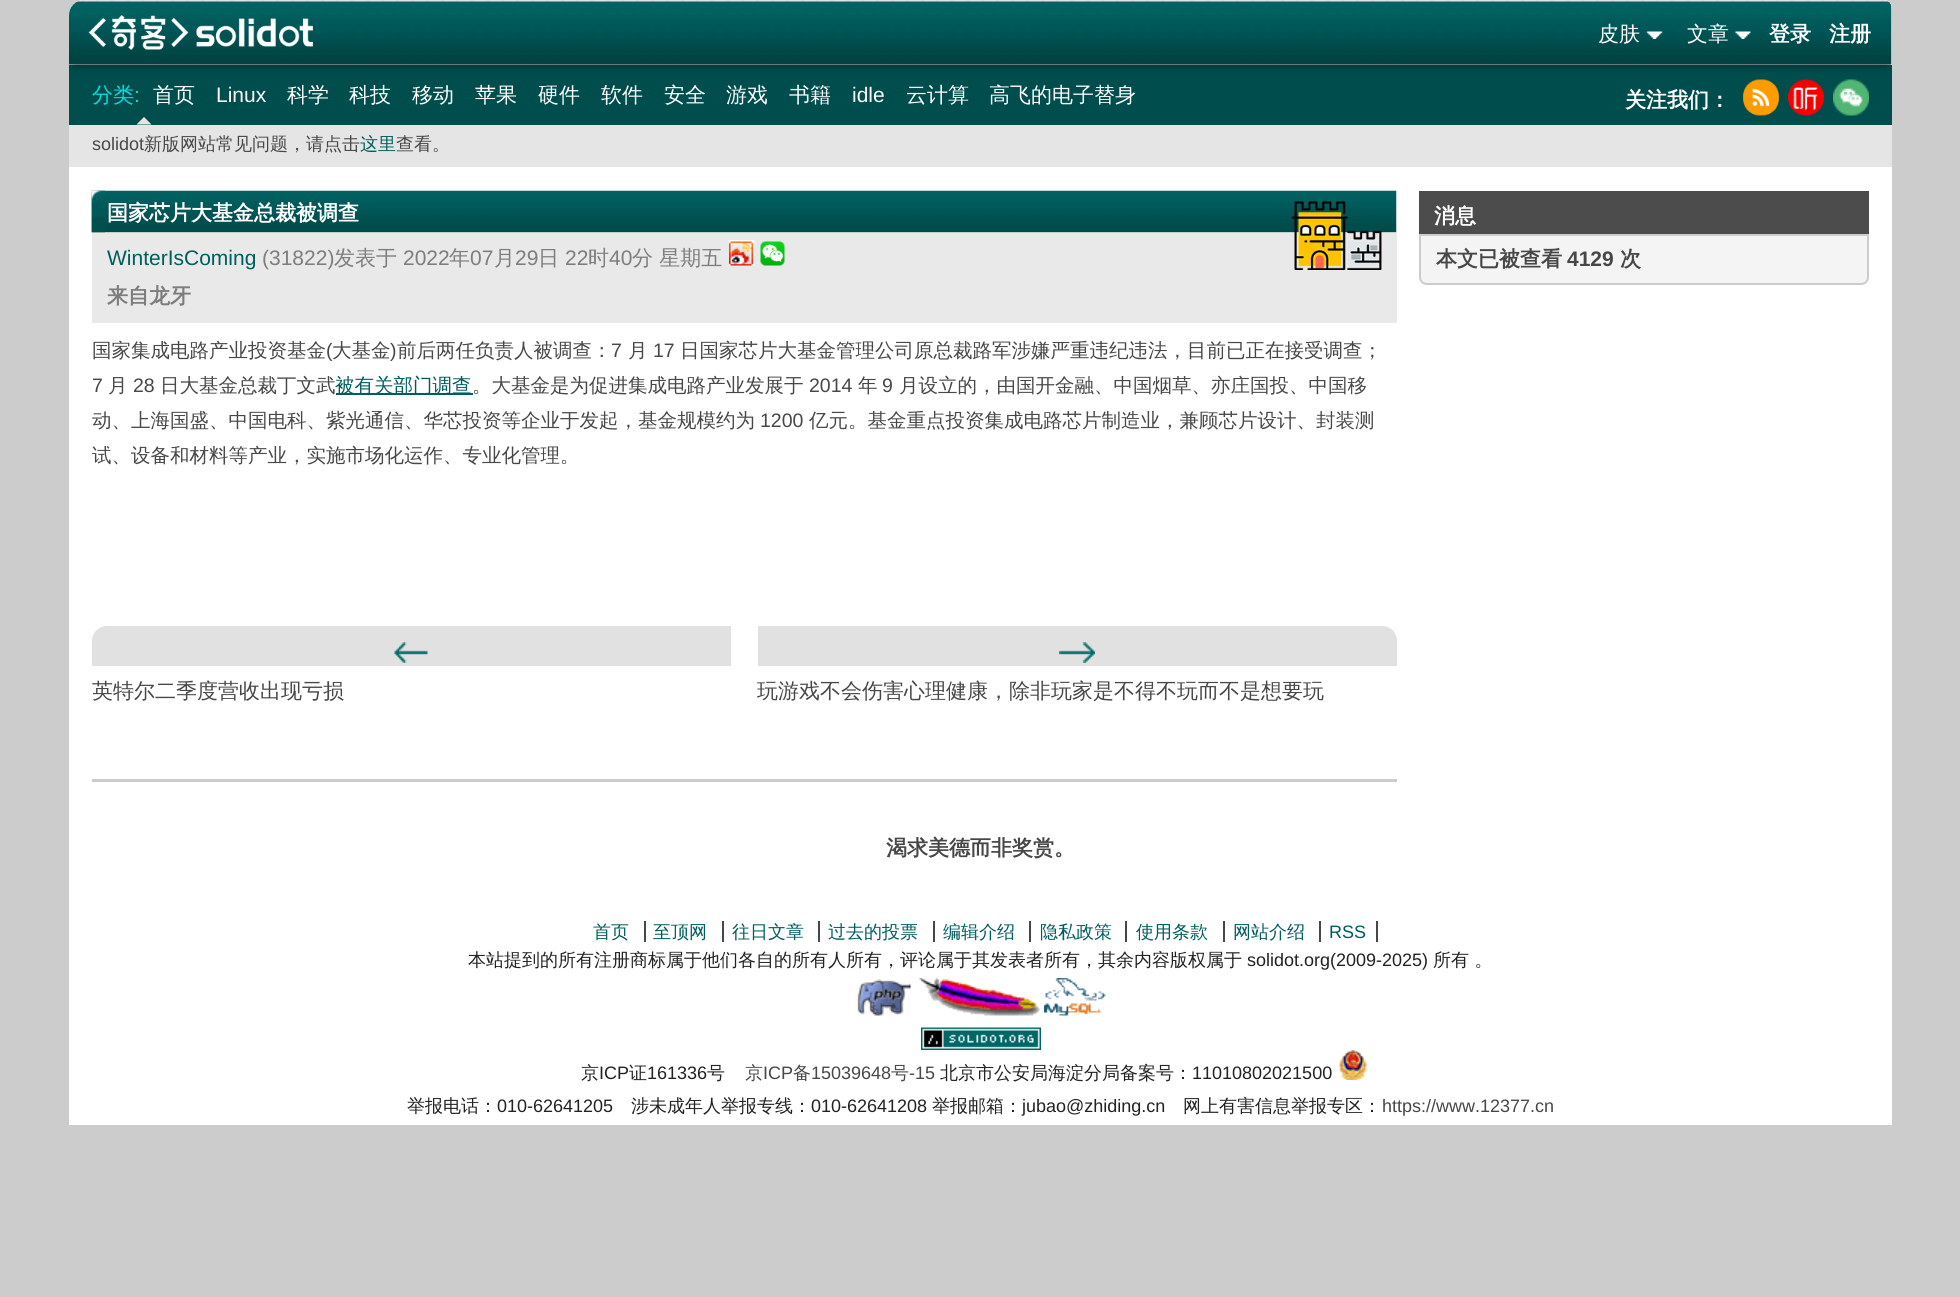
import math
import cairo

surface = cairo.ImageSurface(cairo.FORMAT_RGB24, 1960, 1297)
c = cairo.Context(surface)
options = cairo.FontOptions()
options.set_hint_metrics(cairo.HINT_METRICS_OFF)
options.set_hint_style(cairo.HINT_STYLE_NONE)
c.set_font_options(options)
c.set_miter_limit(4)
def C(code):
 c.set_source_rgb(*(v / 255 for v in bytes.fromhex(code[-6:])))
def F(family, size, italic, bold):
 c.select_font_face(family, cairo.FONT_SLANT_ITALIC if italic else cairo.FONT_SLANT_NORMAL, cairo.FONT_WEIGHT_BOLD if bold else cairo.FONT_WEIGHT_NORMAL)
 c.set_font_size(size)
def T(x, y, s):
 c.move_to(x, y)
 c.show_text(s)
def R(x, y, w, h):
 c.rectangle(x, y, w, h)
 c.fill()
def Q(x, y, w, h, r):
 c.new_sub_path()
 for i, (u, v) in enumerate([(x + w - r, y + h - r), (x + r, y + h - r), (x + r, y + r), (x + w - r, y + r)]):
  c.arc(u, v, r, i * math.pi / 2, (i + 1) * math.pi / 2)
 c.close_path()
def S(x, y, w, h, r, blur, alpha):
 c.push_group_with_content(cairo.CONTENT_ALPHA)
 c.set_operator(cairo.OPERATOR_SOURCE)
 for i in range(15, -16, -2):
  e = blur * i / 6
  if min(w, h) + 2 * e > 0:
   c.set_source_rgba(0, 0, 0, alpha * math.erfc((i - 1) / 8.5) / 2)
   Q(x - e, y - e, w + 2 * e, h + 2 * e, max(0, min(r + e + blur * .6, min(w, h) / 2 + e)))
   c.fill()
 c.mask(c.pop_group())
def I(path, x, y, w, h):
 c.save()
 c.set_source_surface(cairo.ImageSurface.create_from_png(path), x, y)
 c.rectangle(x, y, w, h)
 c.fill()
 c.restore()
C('cccccc')
c.paint()
C('ffffff')
c.new_path()
c.move_to(84,0)
c.line_to(1884,0)
c.curve_to(1888.5,0,1892,3.5,1892,8)
c.line_to(1892,1125)
c.line_to(69,1125)
c.line_to(69,15)
c.curve_to(69,6.5,75.5,0,84,0)
c.close_path()
c.fill()
C('004d4d')
R(69,65,1823,60)
I('5.png',1743,79,36,37)
I('6.png',1788,79,36,37)
I('7.png',1833,79,36,37)
c.save()
c.new_path()
c.move_to(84,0)
c.line_to(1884,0)
c.curve_to(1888.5,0,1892,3.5,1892,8)
c.line_to(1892,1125)
c.line_to(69,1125)
c.line_to(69,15)
c.curve_to(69,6.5,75.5,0,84,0)
c.close_path()
c.clip()
C('000000')
S(74,9,1813,56,0,4.5,.5)
c.restore()
I('2.png',69,0,1823,65)
I('1.png',88,15,225,36)
I('3.png',1646,31,17,8)
F('WenQuanYi Zen Hei Medium',21,0,0)
C('ffffff')
T(1598,41,'皮肤')
I('4.png',1735,31,16,8)
T(1687,41,'文章')
F('WenQuanYi Zen Hei',21,0,1)
T(1769,41,'登录')
T(1829,41,'注册')
F('WenQuanYi Zen Hei Medium',21,0,0)
C('08dede')
T(92,102,'分类')
F('Liberation Sans',21,0,0)
T(134,102,':')
F('WenQuanYi Zen Hei Medium',21,0,0)
C('ffffff')
T(153,102,'首页')
F('Liberation Sans',21,0,0)
T(216,102,'Linux')
F('WenQuanYi Zen Hei Medium',21,0,0)
T(287,102,'科学')
T(349,102,'科技')
T(412,102,'移动')
T(475,102,'苹果')
T(538,102,'硬件')
T(601,102,'软件')
T(664,102,'安全')
T(726,102,'游戏')
T(789,102,'书籍')
F('Liberation Sans',21,0,0)
T(852,102,'idle')
F('WenQuanYi Zen Hei Medium',21,0,0)
T(906,102,'云计算')
T(989,102,'高飞的电子替身')
F('WenQuanYi Zen Hei',21,0,1)
T(1625,107,'关注我们：')
C('e5e5e5')
R(69,125,1823,42)
c.new_path()
c.move_to(151.5,124.5)
c.line_to(136.5,124.5)
c.line_to(144,117)
c.close_path()
c.fill()
F('Liberation Sans',18,0,0)
C('474747')
T(92,150,'solidot')
F('WenQuanYi Zen Hei Medium',18,0,0)
T(144,150,'新版网站常见问题，请点击')
C('005d5d')
T(360,150,'这里')
C('474747')
T(396,150,'查看。')
C('cccccc')
R(92,779,1305,3)
I('9.png',91,190,1306,43)
I('8.png',91,190,14,43)
F('WenQuanYi Zen Hei',21,0,1)
C('ffffff')
T(107,220,'国家芯片大基金总裁被调查')
C('e9e9e9')
R(92,233,1305,90)
F('Liberation Sans',21,0,0)
C('005d5d')
T(107,265,'WinterIsComing')
C('7d7d7d')
T(262,265,'(31822)')
F('WenQuanYi Zen Hei Medium',21,0,0)
T(334,265,'发表于')
F('Liberation Sans',21,0,0)
T(403,265,'2022')
F('WenQuanYi Zen Hei Medium',21,0,0)
T(449,265,'年')
F('Liberation Sans',21,0,0)
T(470,265,'07')
F('WenQuanYi Zen Hei Medium',21,0,0)
T(494,265,'月')
F('Liberation Sans',21,0,0)
T(515,265,'29')
F('WenQuanYi Zen Hei Medium',21,0,0)
T(538,265,'日')
F('Liberation Sans',21,0,0)
T(565,265,'22')
F('WenQuanYi Zen Hei Medium',21,0,0)
T(588,265,'时')
F('Liberation Sans',21,0,0)
T(609,265,'40')
F('WenQuanYi Zen Hei Medium',21,0,0)
T(632,265,'分 星期五')
I('10.png',729,240,26,26)
I('11.png',760,241,25,25)
I('12.png',1291,201,91,69)
F('WenQuanYi Zen Hei',21,0,1)
T(107,303,'来自龙牙')
F('WenQuanYi Zen Hei Medium',19.5,0,0)
C('474747')
T(92,357,'国家集成电路产业投资基金')
F('Liberation Sans',19.5,0,0)
T(326,357,'(')
F('WenQuanYi Zen Hei Medium',19.5,0,0)
T(332,357,'大基金')
F('Liberation Sans',19.5,0,0)
T(390,357,')')
F('WenQuanYi Zen Hei Medium',19.5,0,0)
T(397,357,'前后两任负责人被调查：')
F('Liberation Sans',19.5,0,0)
T(611,357,'7')
F('WenQuanYi Zen Hei Medium',19.5,0,0)
T(628,357,'月')
F('Liberation Sans',19.5,0,0)
T(653,357,'17')
F('WenQuanYi Zen Hei Medium',19.5,0,0)
T(680,357,'日国家芯片大基金管理公司原总裁路军涉嫌严重违纪违法，目前已正在接受调查；')
F('Liberation Sans',19.5,0,0)
T(92,392,'7')
F('WenQuanYi Zen Hei Medium',19.5,0,0)
T(108,392,'月')
F('Liberation Sans',19.5,0,0)
T(133,392,'28')
F('WenQuanYi Zen Hei Medium',19.5,0,0)
T(160,392,'日大基金总裁丁文武')
C('005d5d')
R(336,393,137,2)
T(335,392,'被有关部门调查')
C('474747')
T(472,392,'。大基金是为促进集成电路产业发展于')
F('Liberation Sans',19.5,0,0)
T(809,392,'2014')
F('WenQuanYi Zen Hei Medium',19.5,0,0)
T(858,392,'年')
F('Liberation Sans',19.5,0,0)
T(882,392,'9')
F('WenQuanYi Zen Hei Medium',19.5,0,0)
T(899,392,'月设立的，由国开金融、中国烟草、亦庄国投、中国移')
T(92,427,'动、上海国盛、中国电科、紫光通信、华芯投资等企业于发起，基金规模约为')
F('Liberation Sans',19.5,0,0)
T(760,427,'1200')
F('WenQuanYi Zen Hei Medium',19.5,0,0)
T(809,427,'亿元。基金重点投资集成电路芯片制造业，兼顾芯片设计、封装测')
T(92,462,'试、设备和材料等产业，实施市场化运作、专业化管理。')
C('e1e1e1')
c.new_path()
c.move_to(107,626)
c.line_to(731,626)
c.line_to(731,666)
c.line_to(92,666)
c.line_to(92,641)
c.curve_to(92,632.5,98.5,626,107,626)
c.close_path()
c.fill()
I('13.png',394,642,34,21)
F('WenQuanYi Zen Hei Medium',21,0,0)
C('474747')
T(92,698,'英特尔二季度营收出现亏损')
C('e1e1e1')
c.new_path()
c.move_to(758,626)
c.line_to(1382,626)
c.curve_to(1390.5,626,1397,632.5,1397,641)
c.line_to(1397,666)
c.line_to(758,666)
c.close_path()
c.fill()
I('14.png',1059,642,36,21)
C('474747')
T(757,698,'玩游戏不会伤害心理健康，除非玩家是不得不玩而不是想要玩')
C('4c4c4c')
R(1419,191,450,43)
F('WenQuanYi Zen Hei',21,0,1)
C('ffffff')
T(1434,223,'消息')
C('f4f4f4')
c.new_path()
c.move_to(1420,235)
c.line_to(1868,235)
c.line_to(1868,277)
c.curve_to(1868,281,1865,284,1861,284)
c.line_to(1427,284)
c.curve_to(1423,284,1420,281,1420,277)
c.close_path()
c.fill_preserve()
C('cccccc')
c.stroke()
C('474747')
T(1436,266,'本文已被查看')
F('Liberation Sans',21,0,1)
T(1567,266,'4129')
F('WenQuanYi Zen Hei',21,0,1)
T(1620,266,'次')
T(886,855,'渴求美德而非奖赏。')
F('WenQuanYi Zen Hei Medium',18,0,0)
C('005d5d')
T(593,938,'首页')
C('474747')
R(644,921,2,21)
C('005d5d')
T(653,938,'至顶网')
C('474747')
R(722,921,2,21)
C('005d5d')
T(732,938,'往日文章')
C('474747')
R(818,921,2,21)
C('005d5d')
T(828,938,'过去的投票')
C('474747')
R(933,921,2,21)
C('005d5d')
T(943,938,'编辑介绍')
C('474747')
R(1029,921,2,21)
C('005d5d')
T(1040,938,'隐私政策')
C('474747')
R(1125,921,2,21)
C('005d5d')
T(1136,938,'使用条款')
C('474747')
R(1223,921,2,21)
C('005d5d')
T(1233,938,'网站介绍')
C('474747')
R(1319,921,2,21)
F('Liberation Sans',18,0,0)
C('005d5d')
T(1329,938,'RSS')
C('474747')
R(1376,921,2,21)
F('WenQuanYi Zen Hei Medium',18,0,0)
C('222222')
T(468,966,'本站提到的所有注册商标属于他们各自的所有人所有，评论属于其发表者所有，其余内容版权属于')
F('Liberation Sans',18,0,0)
T(1247,966,'solidot.org(2009-2025)')
F('WenQuanYi Zen Hei Medium',18,0,0)
T(1433,966,'所有 。')
I('15.png',857,979,54,37)
I('16.png',919,978,121,38)
I('17.png',1044,978,62,38)
I('18.png',921,1027,120,23)
T(581,1079,'京')
F('Liberation Sans',18,0,0)
T(599,1079,'ICP')
F('WenQuanYi Zen Hei Medium',18,0,0)
T(629,1079,'证')
F('Liberation Sans',18,0,0)
T(647,1079,'161336')
F('WenQuanYi Zen Hei Medium',18,0,0)
T(707,1079,'号')
C('474747')
T(745,1079,'京')
F('Liberation Sans',18,0,0)
T(763,1079,'ICP')
F('WenQuanYi Zen Hei Medium',18,0,0)
T(793,1079,'备')
F('Liberation Sans',18,0,0)
T(811,1079,'15039648')
F('WenQuanYi Zen Hei Medium',18,0,0)
T(891,1079,'号')
F('Liberation Sans',18,0,0)
T(909,1079,'-15')
F('WenQuanYi Zen Hei Medium',18,0,0)
C('222222')
T(940,1079,'北京市公安局海淀分局备案号：')
F('Liberation Sans',18,0,0)
T(1192,1079,'11010802021500')
I('19.png',1339,1050,28,30)
F('WenQuanYi Zen Hei Medium',18,0,0)
T(407,1112,'举报电话：')
F('Liberation Sans',18,0,0)
T(497,1112,'010-62641205')
F('WenQuanYi Zen Hei Medium',18,0,0)
T(631,1112,'涉未成年人举报专线：')
F('Liberation Sans',18,0,0)
T(811,1112,'010-62641208')
F('WenQuanYi Zen Hei Medium',18,0,0)
T(932,1112,'举报邮箱：')
F('Liberation Sans',18,0,0)
T(1022,1112,'jubao@zhiding.cn')
F('WenQuanYi Zen Hei Medium',18,0,0)
T(1183,1112,'网上有害信息举报专区：')
F('Liberation Sans',18,0,0)
C('474747')
T(1382,1112,'https://www.12377.cn')
surface.write_to_png('o.png')
